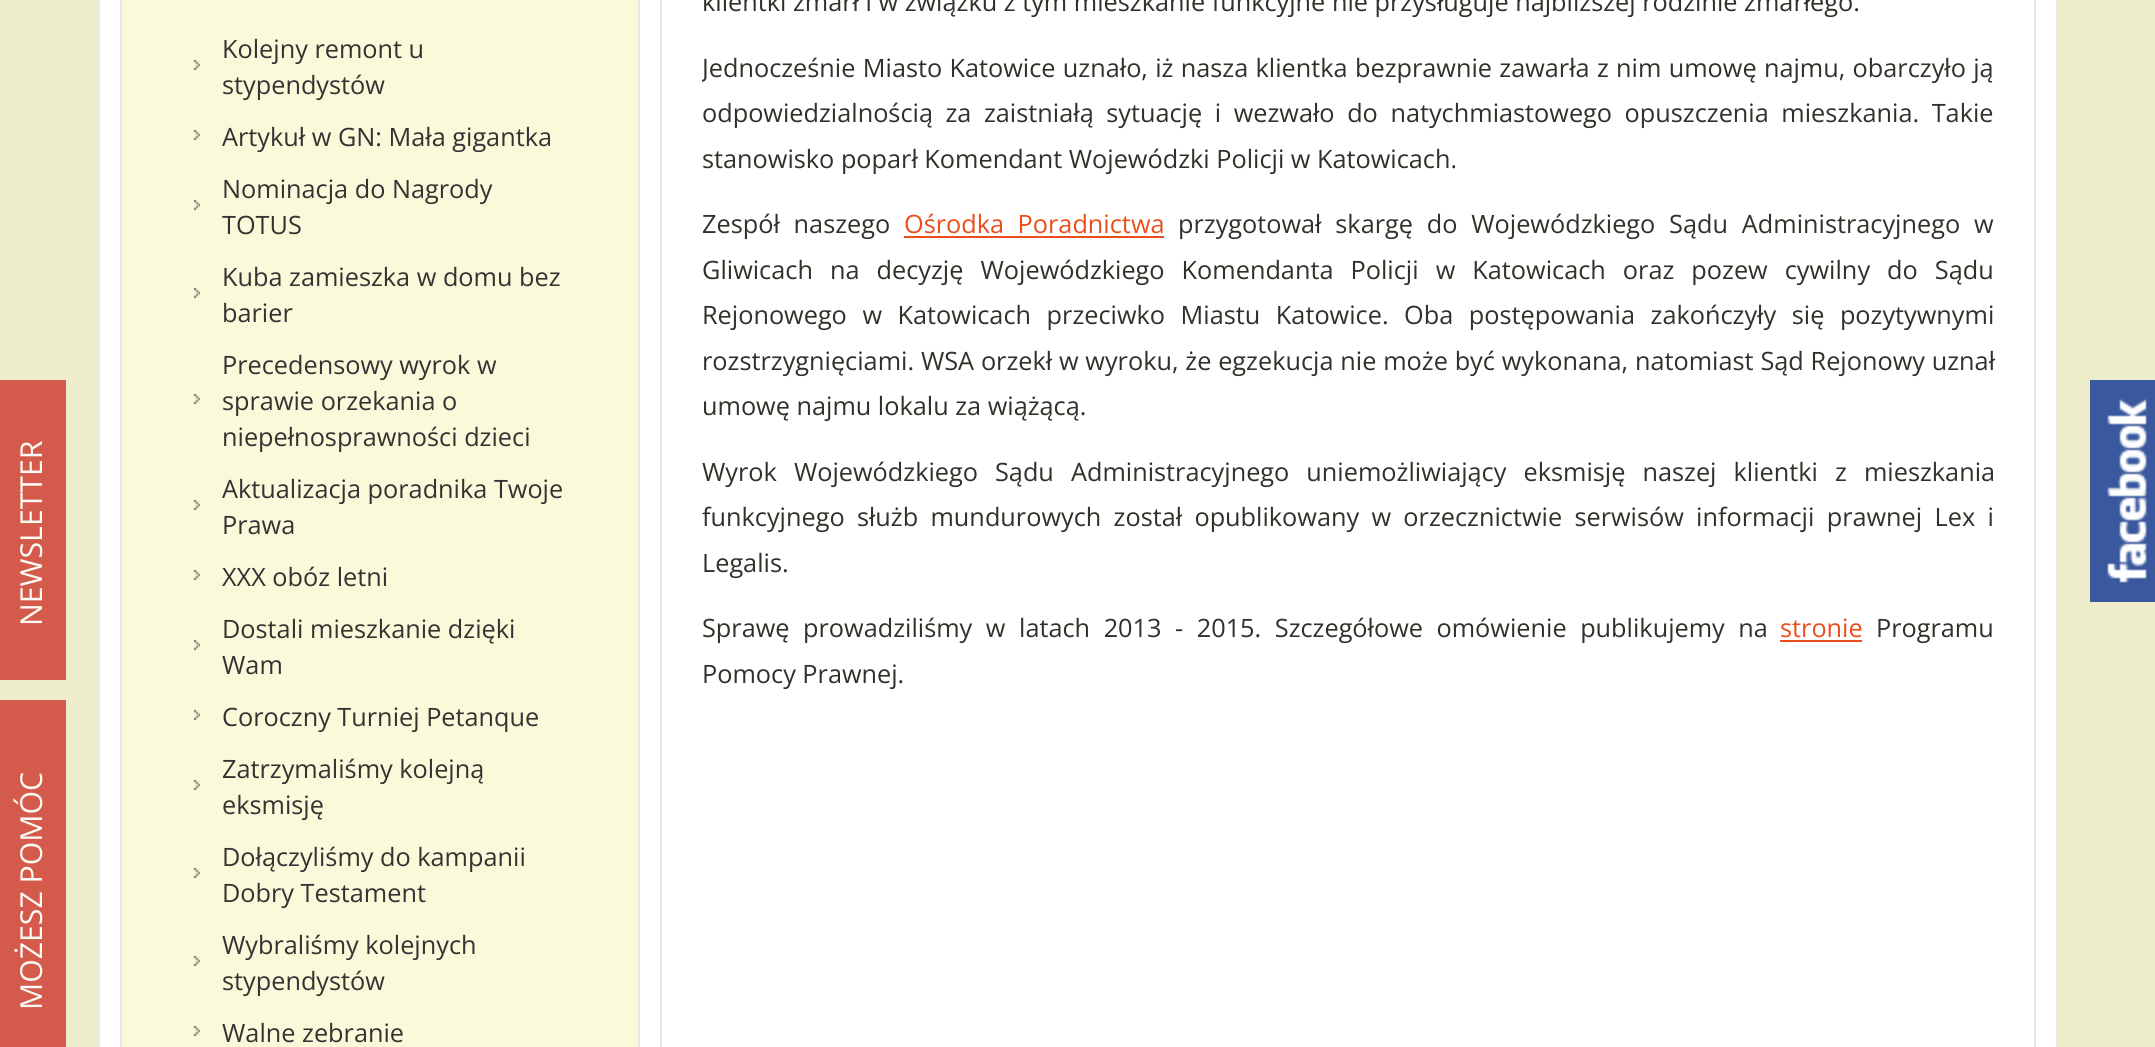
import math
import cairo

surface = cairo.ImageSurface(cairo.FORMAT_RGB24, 2155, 1047)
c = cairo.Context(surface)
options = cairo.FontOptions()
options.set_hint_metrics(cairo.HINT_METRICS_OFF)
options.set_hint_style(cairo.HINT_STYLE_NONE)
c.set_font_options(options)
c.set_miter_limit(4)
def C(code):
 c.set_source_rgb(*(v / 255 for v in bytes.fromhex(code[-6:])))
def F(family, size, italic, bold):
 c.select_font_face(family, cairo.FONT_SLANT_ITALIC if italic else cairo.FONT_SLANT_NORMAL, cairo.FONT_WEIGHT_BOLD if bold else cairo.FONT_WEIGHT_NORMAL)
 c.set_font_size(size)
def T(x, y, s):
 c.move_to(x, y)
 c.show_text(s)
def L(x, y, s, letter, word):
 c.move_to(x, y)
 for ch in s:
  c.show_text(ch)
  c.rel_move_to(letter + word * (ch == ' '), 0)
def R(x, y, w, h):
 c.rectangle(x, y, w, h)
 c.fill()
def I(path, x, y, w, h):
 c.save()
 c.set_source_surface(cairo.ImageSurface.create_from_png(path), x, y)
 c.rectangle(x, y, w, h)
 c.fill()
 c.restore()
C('ededcc')
c.paint()
C('d45a4c')
R(0,380,66,300)
F('Open Sans',30.25,0,0)
C('fbfbf5')
c.save()
c.translate(42,626)
c.rotate(-90 * math.pi / 180)
T(0,0,'NEWSLETTER')
c.restore()
C('ffffff')
c.rectangle(99,-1,1958,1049)
c.fill_preserve()
C('eae8e8')
c.stroke()
C('fafada')
c.rectangle(121,-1,518,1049)
c.fill_preserve()
C('e9e7e7')
c.stroke()
I('1.png',194,60,6,10)
F('Open Sans',25.28,0,0)
C('333333')
T(222,58,'Kolejny remont u')
T(222,94,'stypendystów')
I('1.png',194,130,6,10)
T(222,146,'Artykuł w GN: Mała gigantka')
I('1.png',194,200,6,10)
T(222,198,'Nominacja do Nagrody')
T(222,234,'TOTUS')
I('1.png',194,288,6,10)
T(222,286,'Kuba zamieszka w domu bez')
T(222,322,'barier')
I('1.png',194,394,6,10)
T(222,374,'Precedensowy wyrok w')
T(222,410,'sprawie orzekania o')
T(222,446,'niepełnosprawności dzieci')
I('1.png',194,500,6,10)
T(222,498,'Aktualizacja poradnika Twoje')
T(222,534,'Prawa')
I('1.png',194,570,6,10)
T(222,586,'XXX obóz letni')
I('1.png',194,640,6,10)
T(222,638,'Dostali mieszkanie dzięki')
T(222,674,'Wam')
I('1.png',194,710,6,10)
T(222,726,'Coroczny Turniej Petanque')
I('1.png',194,780,6,10)
T(222,778,'Zatrzymaliśmy kolejną')
T(222,814,'eksmisję')
I('1.png',194,868,6,10)
T(222,866,'Dołączyliśmy do kampanii')
T(222,902,'Dobry Testament')
I('1.png',194,956,6,10)
T(222,954,'Wybraliśmy kolejnych')
T(222,990,'stypendystów')
I('1.png',194,1026,6,10)
T(222,1042,'Walne zebranie')
c.rectangle(661,-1,1374,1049)
C('e9e7e7')
c.stroke()
C('31312a')
T(702,11,'klientki zmarł i w związku z tym mieszkanie funkcyjne nie przysługuje najbliższej rodzinie zmarłego.')
c.save()
c.rectangle(702,0,1292,716)
c.clip()
L(702,77,'Jednocześnie Miasto Katowice uznało, iż nasza klientka bezprawnie zawarła z nim umowę najmu, obarczyło ją',0,.75)
c.restore()
L(702,122,'odpowiedzialnością za zaistniałą sytuację i wezwało do natychmiastowego opuszczenia mieszkania. Takie',0,6)
T(702,168,'stanowisko poparł Komendant Wojewódzki Policji w Katowicach.')
L(702,233,'Zespół naszego',0,7.25)
C('eb4d1b')
L(904,233,'Ośrodka Poradnictwa',0,7)
R(904,236,260,2)
C('31312a')
L(1178,233,'przygotował skargę do Wojewódzkiego Sądu Administracyjnego w',0,7.25)
L(702,279,'Gliwicach na decyzję Wojewódzkiego Komendanta Policji w Katowicach oraz pozew cywilny do Sądu',0,10.5)
L(702,324,'Rejonowego w Katowicach przeciwko Miastu Katowice. Oba postępowania zakończyły się pozytywnymi',0,9)
L(702,370,'rozstrzygnięciami. WSA orzekł w wyroku, że egzekucja nie może być wykonana, natomiast Sąd Rejonowy uznał',0,.25)
T(702,415,'umowę najmu lokalu za wiążącą.')
L(702,481,'Wyrok Wojewódzkiego Sądu Administracyjnego uniemożliwiający eksmisję naszej klientki z mieszkania',0,10.5)
L(702,526,'funkcyjnego służb mundurowych został opublikowany w orzecznictwie serwisów informacji prawnej Lex i',0,5.75)
T(702,572,'Legalis.')
L(702,637,'Sprawę prowadziliśmy w latach 2013 - 2015. Szczegółowe omówienie publikujemy na',0,7)
C('eb4d1b')
T(1780,637,'stronie')
R(1780,640,82,2)
C('31312a')
T(1876,637,'Programu')
T(702,683,'Pomocy Prawnej.')
I('2.png',2090,380,65,222)
C('d45a4c')
R(0,700,66,347)
F('Open Sans',30.25,0,0)
C('fbfbf5')
c.save()
c.translate(42,1010)
c.rotate(-90 * math.pi / 180)
T(0,0,'MOŻESZ POMÓC')
c.restore()
surface.write_to_png('o.png')
